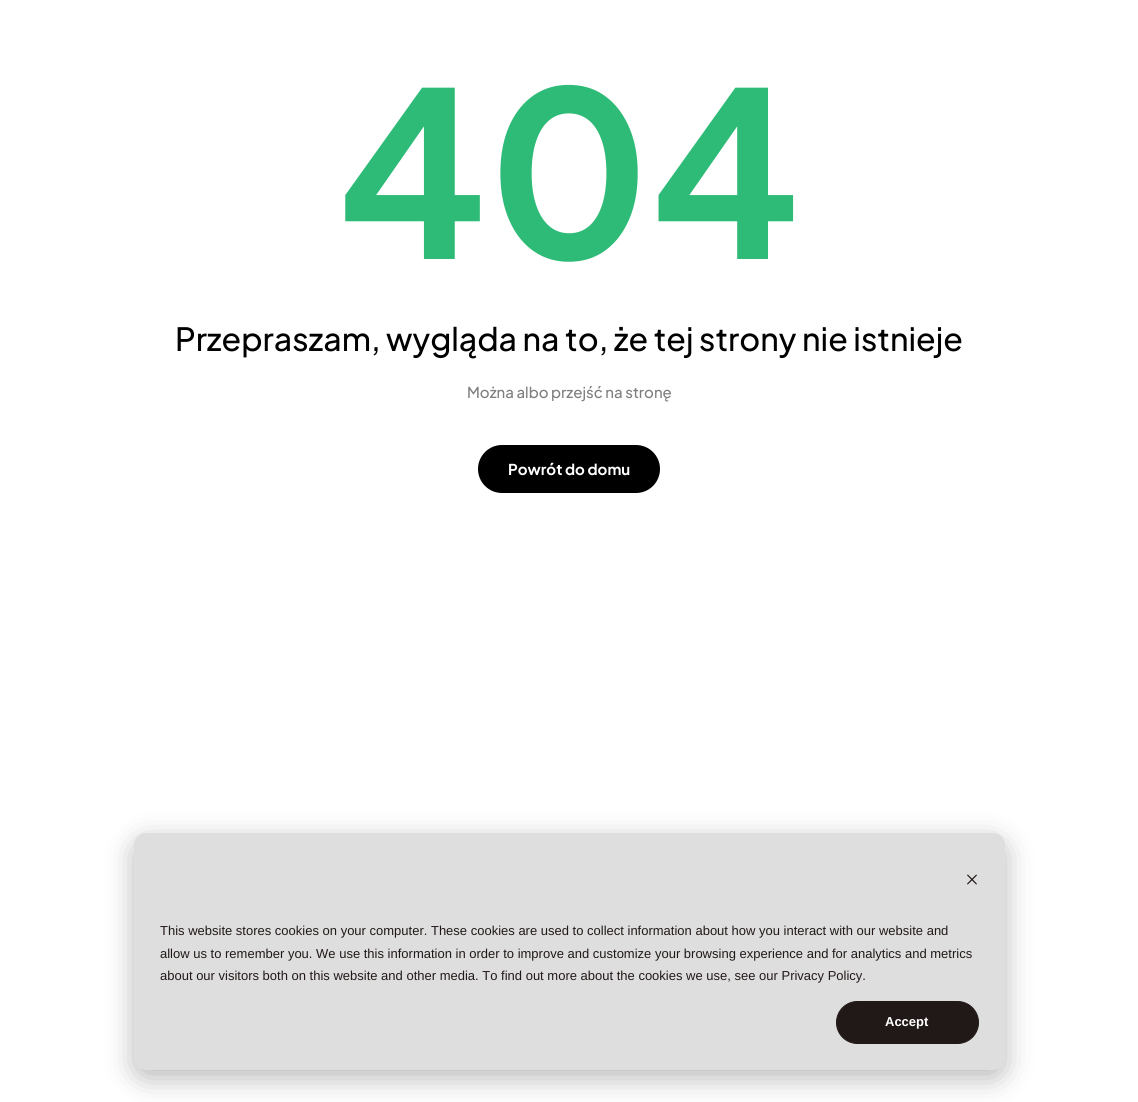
import math
import cairo

surface = cairo.ImageSurface(cairo.FORMAT_RGB24, 1138, 1102)
c = cairo.Context(surface)
options = cairo.FontOptions()
options.set_hint_metrics(cairo.HINT_METRICS_OFF)
options.set_hint_style(cairo.HINT_STYLE_NONE)
c.set_font_options(options)
c.set_miter_limit(4)
def C(code):
 c.set_source_rgb(*(v / 255 for v in bytes.fromhex(code[-6:])))
def F(family, size, italic, bold):
 c.select_font_face(family, cairo.FONT_SLANT_ITALIC if italic else cairo.FONT_SLANT_NORMAL, cairo.FONT_WEIGHT_BOLD if bold else cairo.FONT_WEIGHT_NORMAL)
 c.set_font_size(size)
def T(x, y, s):
 c.move_to(x, y)
 c.show_text(s)
def Q(x, y, w, h, r):
 c.new_sub_path()
 for i, (u, v) in enumerate([(x + w - r, y + h - r), (x + r, y + h - r), (x + r, y + r), (x + w - r, y + r)]):
  c.arc(u, v, r, i * math.pi / 2, (i + 1) * math.pi / 2)
 c.close_path()
def S(x, y, w, h, r, blur, alpha):
 c.push_group_with_content(cairo.CONTENT_ALPHA)
 c.set_operator(cairo.OPERATOR_SOURCE)
 for i in range(15, -16, -2):
  e = blur * i / 6
  if min(w, h) + 2 * e > 0:
   c.set_source_rgba(0, 0, 0, alpha * math.erfc((i - 1) / 8.5) / 2)
   Q(x - e, y - e, w + 2 * e, h + 2 * e, max(0, min(r + e + blur * .6, min(w, h) / 2 + e)))
   c.fill()
 c.mask(c.pop_group())
def I(path, x, y, w, h):
 c.save()
 c.set_source_surface(cairo.ImageSurface.create_from_png(path), x, y)
 c.rectangle(x, y, w, h)
 c.fill()
 c.restore()
C('ffffff')
c.paint()
F('Plus Jakarta Sans',230,0,1)
C('2ebb77')
T(337,259,'404')
F('Plus Jakarta Sans Medium',32,0,0)
C('000000')
T(175,351,'Przepraszam, wygląda na to, że tej strony nie istnieje')
F('Plus Jakarta Sans Medium',15,0,0)
C('7e7e7e')
T(467,398,'Można albo przejść na stronę')
C('000000')
Q(478,445,182,48,24)
c.fill()
F('Plus Jakarta Sans',15,0,1)
C('ffffff')
T(508,475,'Powrót do domu')
C('000000')
S(134,841,871,237,12,14,.28)
C('dedede')
Q(134,833,871,237,12)
c.fill()
I('1.png',967,874,10,11)
F('Liberation Sans',13,0,0)
C('211917')
T(160,935,'This website stores cookies on your computer. These cookies are used to collect information about how you interact with our website and')
T(160,958,'allow us to remember you. We use this information in order to improve and customize your browsing experience and for analytics and metrics')
T(160,980,'about our visitors both on this website and other media. To find out more about the cookies we use, see our Privacy Policy.')
Q(836.5,1001.5,142,42,21)
c.fill_preserve()
c.set_line_width(1)
c.stroke()
F('Liberation Sans',13,0,1)
C('ffffff')
T(885,1026,'Accept')
surface.write_to_png('o.png')
